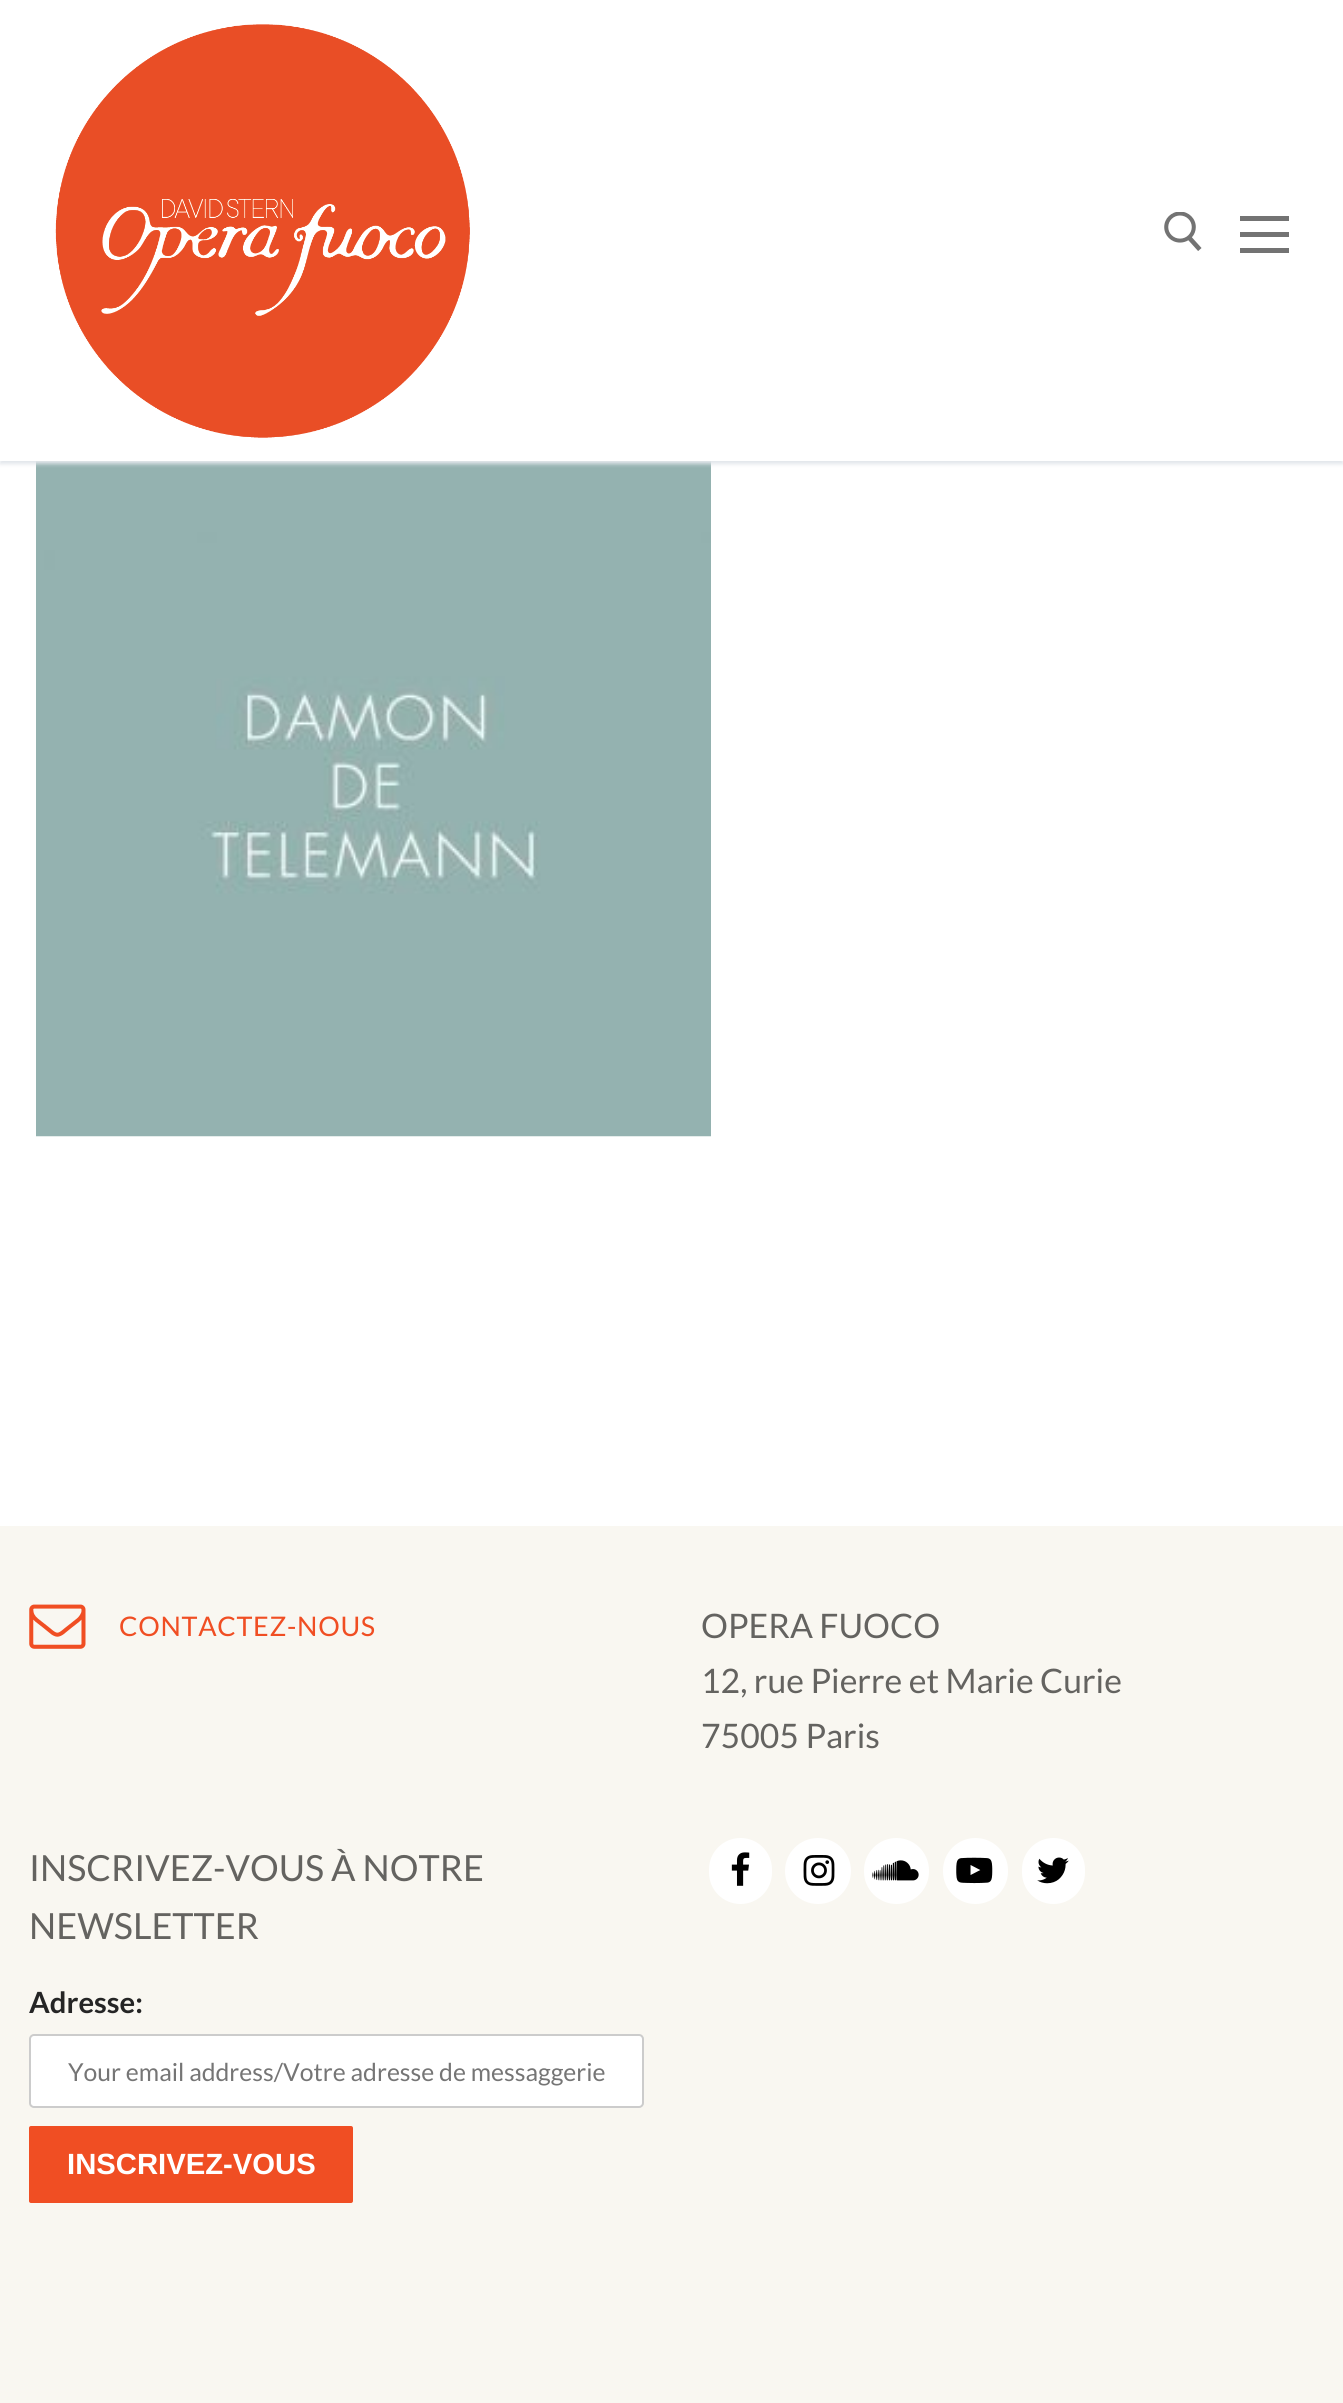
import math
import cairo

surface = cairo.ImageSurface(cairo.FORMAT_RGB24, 1343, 2403)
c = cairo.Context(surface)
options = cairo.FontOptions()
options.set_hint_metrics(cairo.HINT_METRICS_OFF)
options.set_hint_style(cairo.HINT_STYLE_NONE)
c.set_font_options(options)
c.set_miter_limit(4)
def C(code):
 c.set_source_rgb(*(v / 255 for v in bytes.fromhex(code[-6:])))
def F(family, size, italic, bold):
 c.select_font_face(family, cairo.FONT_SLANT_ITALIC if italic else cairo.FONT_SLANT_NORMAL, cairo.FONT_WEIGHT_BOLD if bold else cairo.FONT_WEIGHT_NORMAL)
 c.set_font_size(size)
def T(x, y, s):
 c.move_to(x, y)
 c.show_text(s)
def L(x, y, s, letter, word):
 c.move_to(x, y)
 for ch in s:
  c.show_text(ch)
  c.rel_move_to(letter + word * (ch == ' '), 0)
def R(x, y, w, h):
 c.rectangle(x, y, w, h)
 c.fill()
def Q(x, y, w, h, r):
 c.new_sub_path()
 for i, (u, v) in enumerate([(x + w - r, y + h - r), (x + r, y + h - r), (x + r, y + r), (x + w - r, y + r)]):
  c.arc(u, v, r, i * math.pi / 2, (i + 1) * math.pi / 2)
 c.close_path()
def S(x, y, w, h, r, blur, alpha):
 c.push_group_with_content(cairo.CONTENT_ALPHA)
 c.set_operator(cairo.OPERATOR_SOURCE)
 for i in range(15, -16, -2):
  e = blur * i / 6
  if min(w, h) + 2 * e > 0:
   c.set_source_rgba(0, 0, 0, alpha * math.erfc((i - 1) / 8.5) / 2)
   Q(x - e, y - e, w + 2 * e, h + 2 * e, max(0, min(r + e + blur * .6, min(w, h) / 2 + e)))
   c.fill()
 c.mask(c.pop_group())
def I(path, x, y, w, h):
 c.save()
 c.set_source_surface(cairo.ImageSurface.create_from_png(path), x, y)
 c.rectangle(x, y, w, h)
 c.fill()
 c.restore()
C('ffffff')
c.paint()
I('3.png',36,461,675,676)
c.save()
c.rectangle(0,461,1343,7)
c.clip()
C('e1e5ea')
S(0,2,1343,462,0,2,1)
c.restore()
I('1.png',55,24,415,414)
I('2.png',1164,212,38,39)
C('737373')
R(1240,232,49,5)
R(1240,216,49,5)
R(1240,248,49,5)
C('f9f7f1')
R(0,1526,1343,877)
I('4.png',29,1604,57,45)
F('Lato',27,0,0)
C('f04e23')
L(119,1636,'CONTACTEZ-NOUS',.7,0)
F('Lato',33.75,0,0)
C('646360')
T(701,1638,'OPERA FUOCO')
T(701,1693,'12, rue Pierre et Marie Curie')
T(701,1748,'75005 Paris')
F('Lato',36,0,0)
T(29,1881,'INSCRIVEZ-VOUS À NOTRE')
T(29,1939,'NEWSLETTER')
F('Lato',29.25,0,1)
C('252525')
T(29,2013,'Adresse:')
C('ffffff')
Q(30,2035,613,72,4)
c.fill_preserve()
C('cccccc')
c.stroke()
F('Lato',24.75,0,0)
C('757575')
T(68,2081,'Your email address/Votre adresse de messaggerie')
C('f04e23')
Q(29,2126,324,77,2)
c.fill()
F('Liberation Sans',29.25,0,1)
C('ffffff')
T(67,2174,'INSCRIVEZ-VOUS')
Q(709,1838,63,66,31.5)
c.fill()
I('5.png',731,1852,19,34)
c.arc(818,1871,33,0,2 * math.pi)
c.fill()
I('6.png',803,1855,32,31)
Q(864,1838,65,66,32.5)
c.fill()
I('7.png',872,1860,47,21)
Q(943,1838,65,66,32.5)
c.fill()
I('8.png',956,1857,37,27)
Q(1022,1838,63,66,31.5)
c.fill()
I('9.png',1037,1857,32,27)
surface.write_to_png('o.png')
